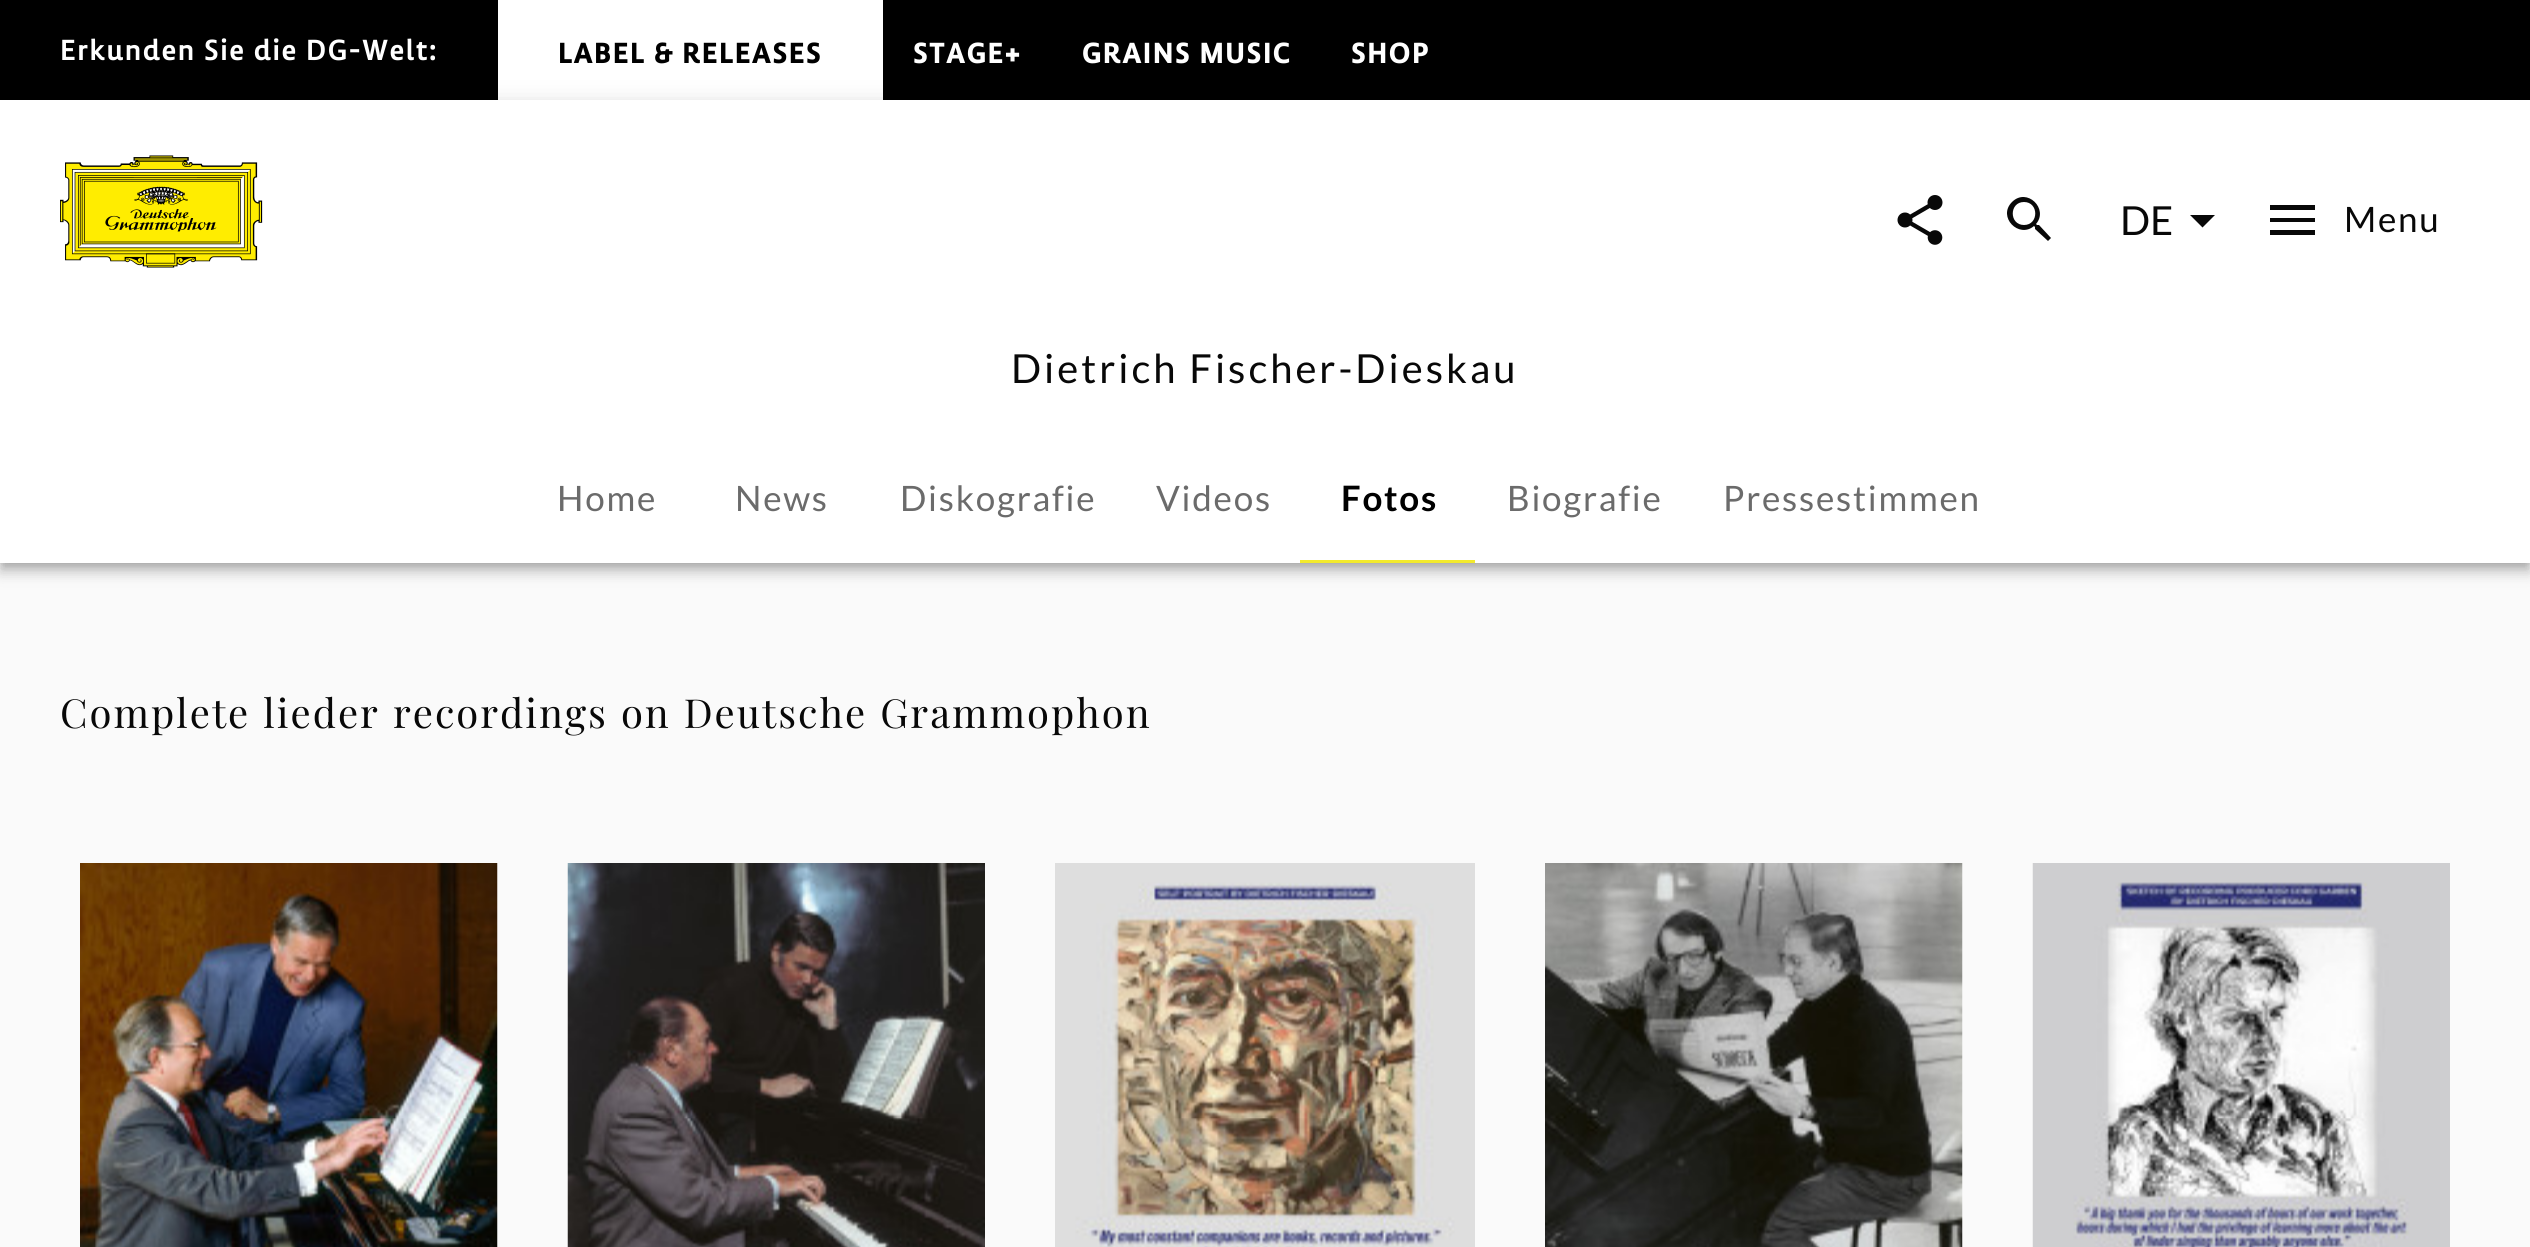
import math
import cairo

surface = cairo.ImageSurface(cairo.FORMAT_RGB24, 2530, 1247)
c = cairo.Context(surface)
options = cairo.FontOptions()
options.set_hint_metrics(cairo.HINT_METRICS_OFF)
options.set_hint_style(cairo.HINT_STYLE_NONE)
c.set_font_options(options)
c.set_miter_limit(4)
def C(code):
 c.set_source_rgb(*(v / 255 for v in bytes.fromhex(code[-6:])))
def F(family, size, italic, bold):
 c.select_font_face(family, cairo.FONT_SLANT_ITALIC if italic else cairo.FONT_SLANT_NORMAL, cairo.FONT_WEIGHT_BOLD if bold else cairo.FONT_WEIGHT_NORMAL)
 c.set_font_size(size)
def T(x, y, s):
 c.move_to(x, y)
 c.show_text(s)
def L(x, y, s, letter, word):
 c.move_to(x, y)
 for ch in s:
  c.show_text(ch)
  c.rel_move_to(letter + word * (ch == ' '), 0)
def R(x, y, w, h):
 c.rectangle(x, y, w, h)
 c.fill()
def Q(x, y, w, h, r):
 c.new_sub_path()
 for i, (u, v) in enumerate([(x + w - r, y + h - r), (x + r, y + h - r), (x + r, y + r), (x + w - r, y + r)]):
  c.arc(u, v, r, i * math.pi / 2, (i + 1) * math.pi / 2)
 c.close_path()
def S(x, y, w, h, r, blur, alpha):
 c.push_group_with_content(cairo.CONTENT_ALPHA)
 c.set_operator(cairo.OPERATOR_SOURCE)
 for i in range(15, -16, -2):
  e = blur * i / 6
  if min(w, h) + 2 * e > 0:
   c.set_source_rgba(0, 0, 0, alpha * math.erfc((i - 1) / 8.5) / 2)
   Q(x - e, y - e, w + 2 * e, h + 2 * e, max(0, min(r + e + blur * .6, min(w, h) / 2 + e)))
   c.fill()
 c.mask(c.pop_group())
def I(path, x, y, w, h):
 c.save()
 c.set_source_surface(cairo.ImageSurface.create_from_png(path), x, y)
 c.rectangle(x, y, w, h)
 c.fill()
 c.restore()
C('fafafa')
c.paint()
C('000000')
R(0,0,2530,100)
F('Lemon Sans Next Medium',30,0,0)
C('ffffff')
L(60,60,'Erkunden Sie die DG-Welt:',1.5,0)
R(498,0,385,100)
F('Lemon Sans Next',30,0,1)
C('000000')
L(558,63,'LABEL & RELEASES',1.5,0)
C('ffffff')
L(913,63,'STAGE+',1.5,0)
L(1082,63,'GRAINS MUSIC',1.5,0)
L(1351,63,'SHOP',1.5,0)
C('000000')
S(0,103,2530,462,0,12.5,.12)
S(0,110,2530,463,0,6,.14)
S(3,108,2525,457,0,5,.2)
C('ffffff')
R(0,100,2530,463)
I('1.png',60,155,203,113)
I('2.png',1897,195,46,50)
C('080808')
c.new_path()
c.move_to(2039,225)
c.line_to(2037,225)
c.line_to(2036,224)
c.curve_to(2049,209,2027,187,2012,202)
c.curve_to(1997,217,2019,239,2034,226)
c.line_to(2035,227)
c.line_to(2035,229)
c.line_to(2048,241)
c.line_to(2051,238)
c.close_path()
c.move_to(2024,225)
c.curve_to(2009,225,2009,202,2024,202)
c.curve_to(2039,202,2039,225,2024,225)
c.fill()
F('Lato',40,0,0)
T(2120,235,'DE')
c.new_path()
c.move_to(2190,215)
c.line_to(2202.5,227.5)
c.line_to(2215,215)
c.close_path()
c.fill()
c.new_path()
c.move_to(2270,235)
c.line_to(2315,235)
c.line_to(2315,230)
c.line_to(2270,230)
c.close_path()
c.move_to(2270,222)
c.line_to(2315,222)
c.line_to(2315,218)
c.line_to(2270,218)
c.close_path()
c.move_to(2270,205)
c.line_to(2270,210)
c.line_to(2315,210)
c.line_to(2315,205)
c.close_path()
c.fill()
F('Lato',35,0,0)
L(2344,232,'Menu',1.75,0)
F('Lato',40,0,0)
L(1011,383,'Dietrich Fischer-Dieskau',3,0)
F('Lato',35,0,0)
C('6b6b6b')
L(557,511,'Home',1.75,0)
L(735,511,'News',1.75,0)
L(900,511,'Diskografie',1.75,0)
L(1156,511,'Videos',1.75,0)
F('Lato',35,0,1)
C('000000')
L(1341,511,'Fotos',1.75,0)
F('Lato',35,0,0)
C('6b6b6b')
L(1507,511,'Biografie',1.75,0)
L(1723,511,'Pressestimmen',1.75,0)
C('f3ea2c')
R(1300,560,175,3)
F('Playfair Display',40,0,0)
C('080808')
L(60,728,'Complete lieder recordings on Deutsche Grammophon',2,1)
I('3.png',80,863,418,384)
I('4.png',567,863,418,384)
I('5.png',1055,863,420,384)
I('6.png',1545,863,418,384)
I('7.png',2032,863,418,384)
surface.write_to_png('o.png')
